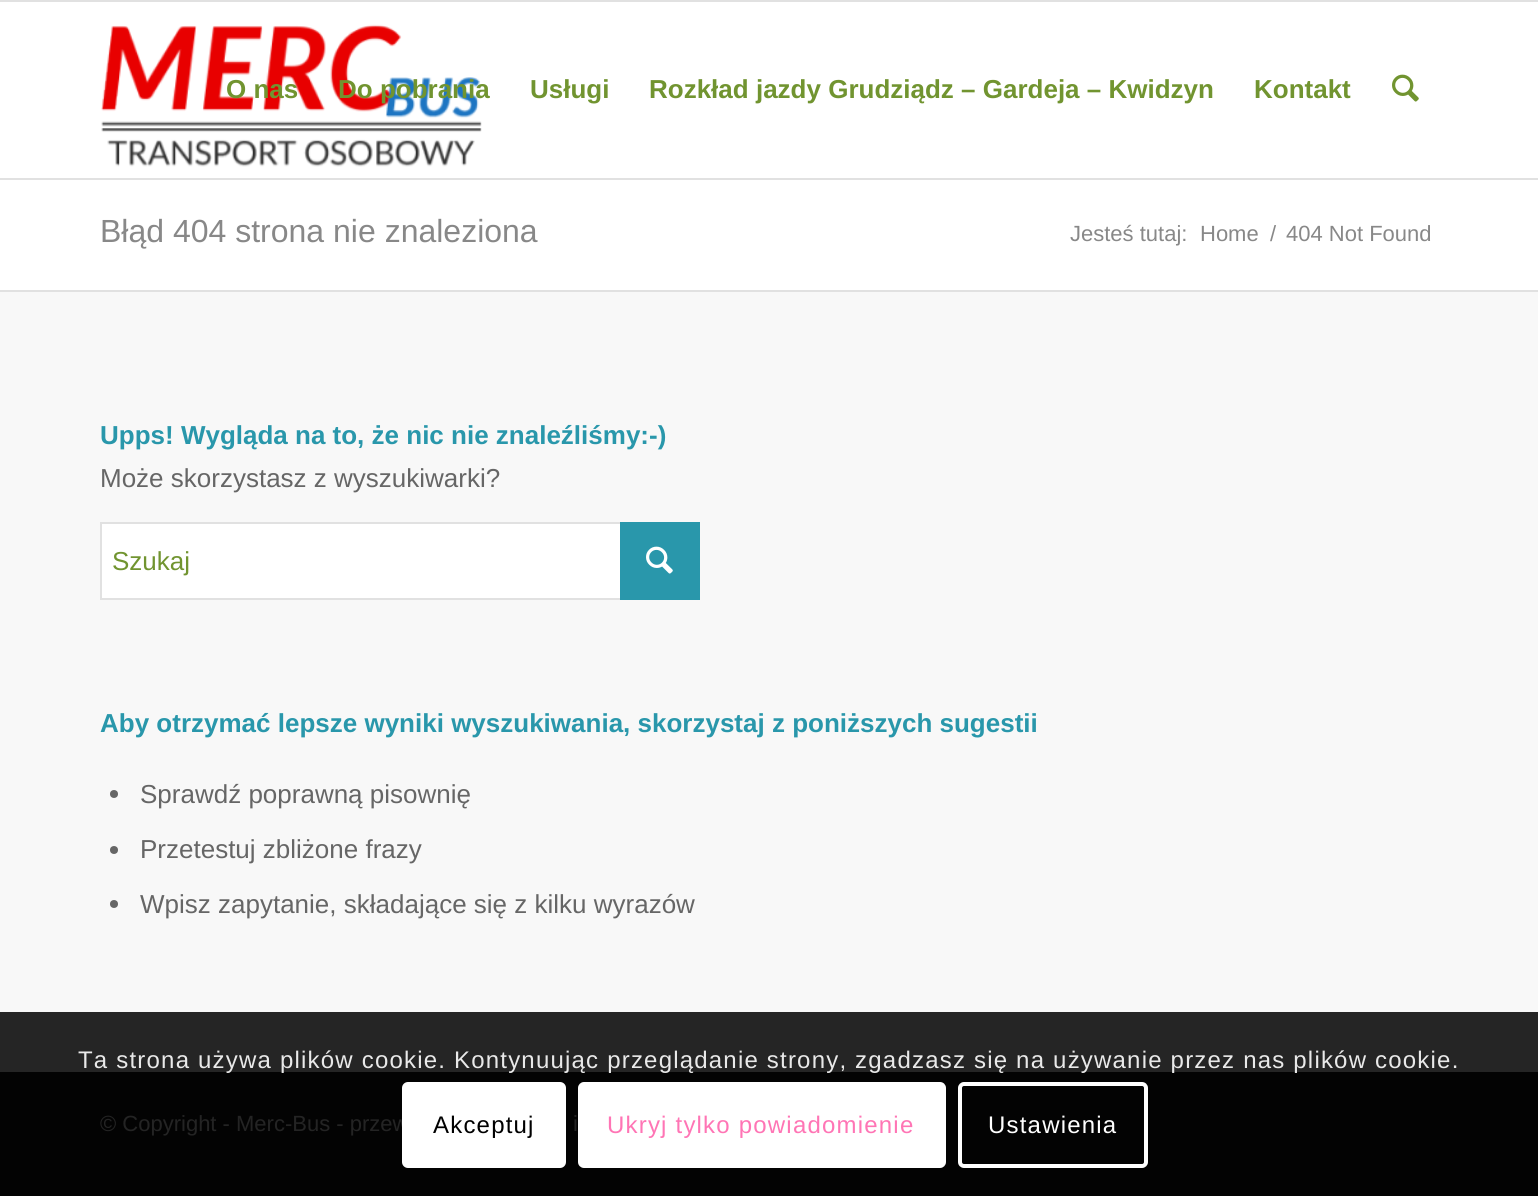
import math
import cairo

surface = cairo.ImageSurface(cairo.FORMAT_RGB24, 1538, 1196)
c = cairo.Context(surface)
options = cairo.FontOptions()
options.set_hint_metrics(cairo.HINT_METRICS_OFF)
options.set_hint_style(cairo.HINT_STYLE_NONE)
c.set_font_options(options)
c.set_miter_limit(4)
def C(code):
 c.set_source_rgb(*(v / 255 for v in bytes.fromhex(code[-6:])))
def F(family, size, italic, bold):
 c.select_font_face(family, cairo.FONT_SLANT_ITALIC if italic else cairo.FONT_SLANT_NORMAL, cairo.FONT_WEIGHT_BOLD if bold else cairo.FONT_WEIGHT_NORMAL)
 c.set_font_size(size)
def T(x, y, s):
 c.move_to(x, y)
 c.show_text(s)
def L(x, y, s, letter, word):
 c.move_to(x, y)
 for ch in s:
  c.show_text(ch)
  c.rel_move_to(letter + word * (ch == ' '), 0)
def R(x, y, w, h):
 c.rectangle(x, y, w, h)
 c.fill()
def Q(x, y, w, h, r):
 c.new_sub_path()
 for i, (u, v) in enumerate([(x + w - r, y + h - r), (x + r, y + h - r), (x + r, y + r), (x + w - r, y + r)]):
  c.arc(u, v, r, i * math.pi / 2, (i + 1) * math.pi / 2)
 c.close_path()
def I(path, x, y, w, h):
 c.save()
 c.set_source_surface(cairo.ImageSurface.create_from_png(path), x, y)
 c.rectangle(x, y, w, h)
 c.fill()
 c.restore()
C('030303')
c.paint()
C('e1e1e1')
R(0,0,1538,2)
C('ffffff')
R(0,2,1538,288)
C('e1e1e1')
R(0,178,1538,2)
I('1.png',101,24,381,143)
F('Liberation Sans',26,0,1)
C('719430')
T(226,98,'O nas')
T(338,98,'Do pobrania')
T(530,98,'Usługi')
T(649,98,'Rozkład jazdy Grudziądz – Gardeja – Kwidzyn')
T(1254,98,'Kontakt')
I('2.png',1392,74,27,28)
F('Liberation Sans',32,0,0)
C('888888')
T(100,242,'Błąd 404 strona nie znaleziona')
F('Liberation Sans',22,0,0)
T(1070,241,'Jesteś tutaj:')
T(1200,241,'Home')
T(1270,241,'/')
T(1286,241,'404 Not Found')
C('f8f8f8')
R(0,292,1538,720)
C('252525')
R(0,1012,1538,60)
C('e1e1e1')
R(0,290,1538,2)
F('Liberation Sans',26,0,1)
C('2997ab')
T(100,444,'Upps! Wygląda na to, że nic nie znaleźliśmy:-)')
F('Liberation Sans',26,0,0)
C('666666')
T(100,487,'Może skorzystasz z wyszukiwarki?')
C('ffffff')
R(102,524,518,74)
c.rectangle(101,523,598,76)
C('e1e1e1')
c.stroke()
C('719430')
T(112,570,'Szukaj')
C('2997ab')
R(620,522,80,78)
I('3.png',646,546,27,28)
F('Liberation Sans',26,0,1)
T(100,732,'Aby otrzymać lepsze wyniki wyszukiwania, skorzystaj z poniższych sugestii')
C('666666')
c.new_path()
c.arc(114,794,4,0,2 * math.pi)
c.fill()
F('Liberation Sans',26,0,0)
T(140,803,'Sprawdź poprawną pisownię')
c.new_path()
c.arc(114,850,4,0,2 * math.pi)
c.fill()
T(140,858,'Przetestuj zbliżone frazy')
c.new_path()
c.arc(114,904,4,0,2 * math.pi)
c.fill()
T(140,913,'Wpisz zapytanie, składające się z kilku wyrazów')
F('Liberation Sans',22,0,0)
C('242424')
T(100,1131,'© Copyright - Merc-Bus - przew')
T(573,1131,'i')
F('Liberation Sans',24,0,0)
C('e9e9e9')
L(78,1068,'Ta strona używa plików cookie. Kontynuując przeglądanie strony, zgadzasz się na używanie przez nas plików cookie.',1.2,0)
C('ffffff')
Q(402,1082,164,86,6)
c.fill()
C('000000')
L(433,1133,'Akceptuj',1.2,0)
C('ffffff')
Q(580,1084,364,82,4)
c.fill_preserve()
c.set_line_width(4)
c.stroke()
C('ff75b5')
L(607,1133,'Ukryj tylko powiadomienie',1.2,0)
Q(960,1084,186,82,4)
C('ffffff')
c.stroke()
L(988,1133,'Ustawienia',1.2,0)
surface.write_to_png('o.png')
